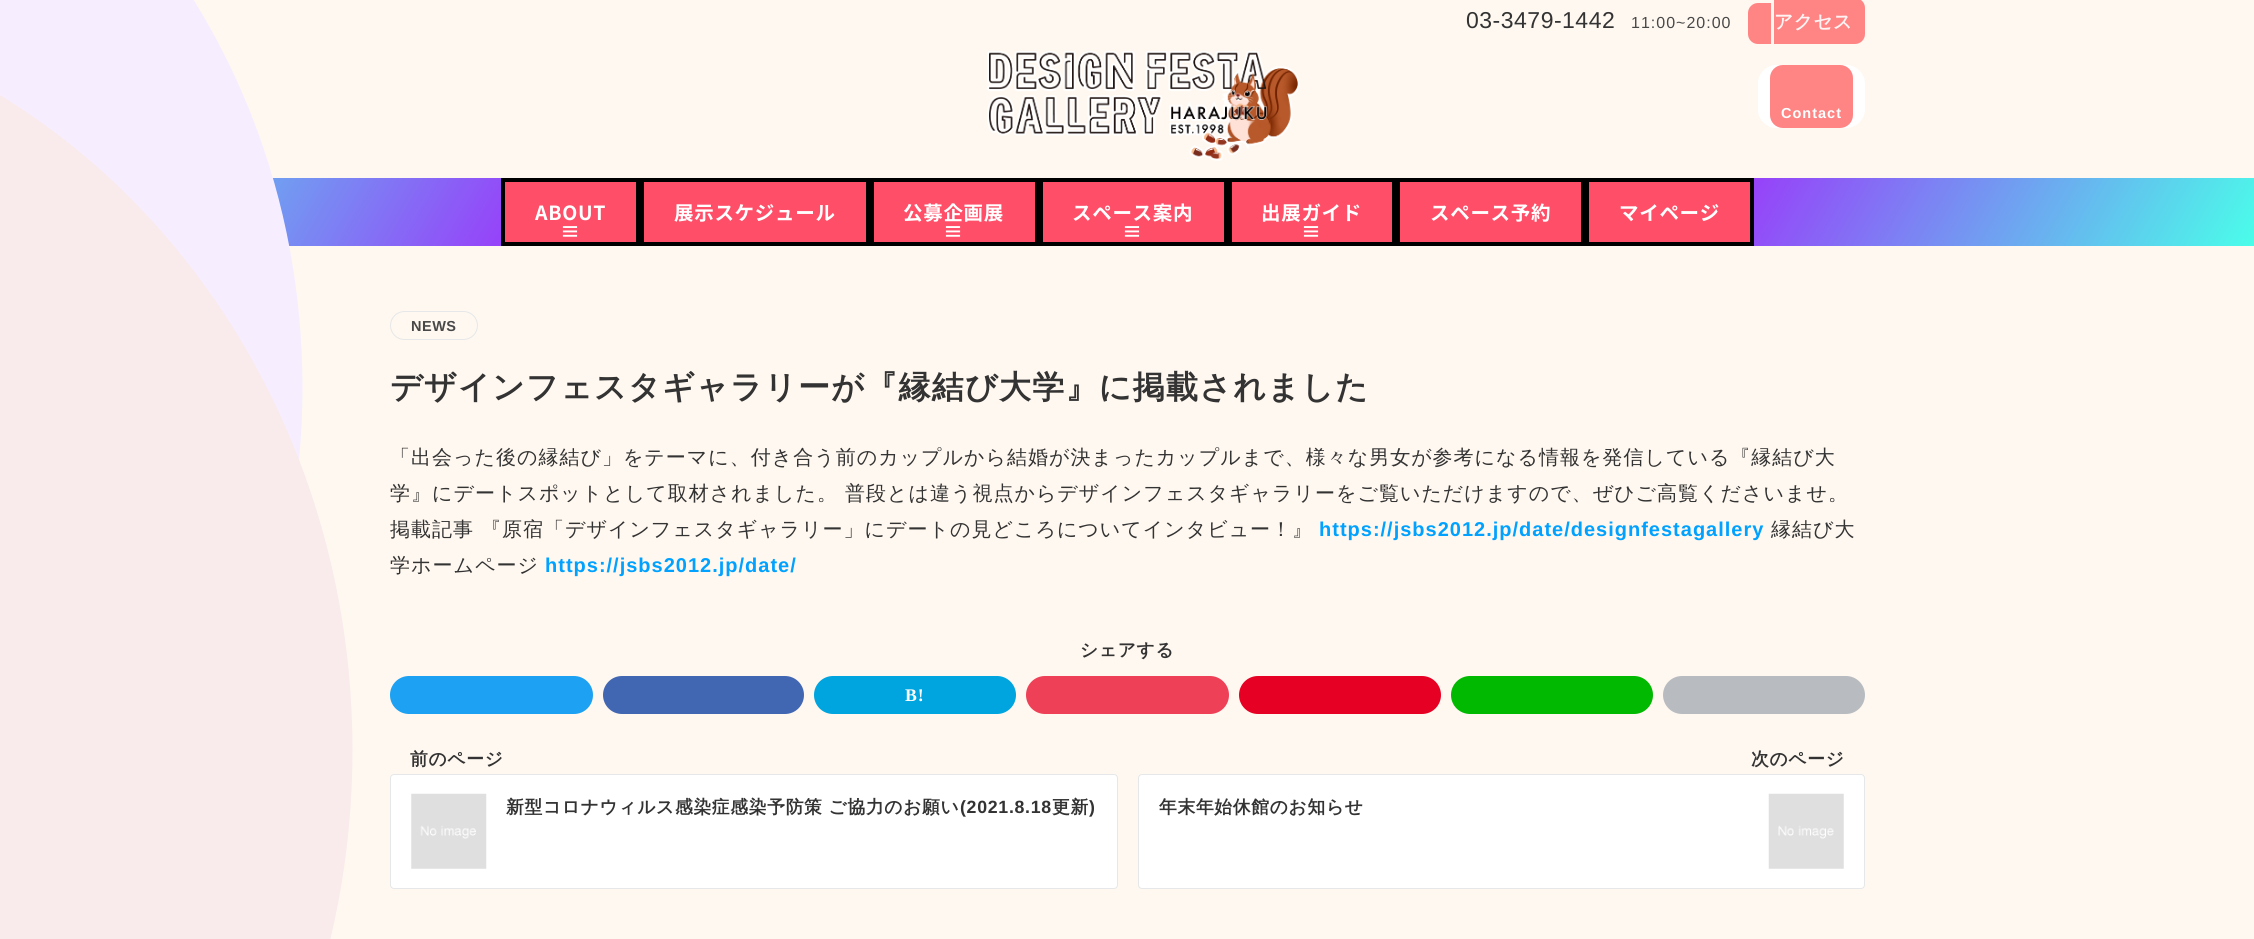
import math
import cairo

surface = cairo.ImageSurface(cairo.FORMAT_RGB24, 2254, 939)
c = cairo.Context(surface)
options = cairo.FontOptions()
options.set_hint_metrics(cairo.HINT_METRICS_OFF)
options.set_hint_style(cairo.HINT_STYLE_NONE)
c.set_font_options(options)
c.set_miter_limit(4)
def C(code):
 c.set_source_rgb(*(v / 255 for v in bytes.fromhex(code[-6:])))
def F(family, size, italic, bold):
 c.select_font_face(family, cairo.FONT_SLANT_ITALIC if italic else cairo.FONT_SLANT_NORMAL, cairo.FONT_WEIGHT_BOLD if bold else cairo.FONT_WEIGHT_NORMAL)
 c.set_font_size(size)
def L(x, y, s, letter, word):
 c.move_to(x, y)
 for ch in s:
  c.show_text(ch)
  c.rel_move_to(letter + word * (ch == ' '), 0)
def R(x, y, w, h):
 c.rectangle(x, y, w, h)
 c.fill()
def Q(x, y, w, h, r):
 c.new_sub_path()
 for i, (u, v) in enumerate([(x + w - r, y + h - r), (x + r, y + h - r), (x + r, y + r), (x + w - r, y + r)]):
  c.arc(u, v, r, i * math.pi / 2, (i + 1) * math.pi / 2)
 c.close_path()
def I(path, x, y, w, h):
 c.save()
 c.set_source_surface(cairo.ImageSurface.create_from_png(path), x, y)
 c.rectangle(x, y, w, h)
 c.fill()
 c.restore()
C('fff8f0')
c.paint()
gradient = cairo.LinearGradient(267,-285,1988,709)
gradient.add_color_stop_rgba(0,0.29,0.996,0.914,1)
gradient.add_color_stop_rgba(.25,0.608,0.212,0.98,1)
gradient.add_color_stop_rgba(.75,0.608,0.212,0.98,1)
gradient.add_color_stop_rgba(1,0.29,0.996,0.914,1)
c.set_source(gradient)
R(272,178,1982,68)
C('f6eeff')
c.new_path()
c.move_to(-322.5,-300)
c.curve_to(22.5,-300,302.5,8,302.5,387.5)
c.curve_to(302.5,767,22.5,1075,-322.5,1075)
c.curve_to(-667.5,1075,-947.5,767,-947.5,387.5)
c.curve_to(-947.5,8,-667.5,-300,-322.5,-300)
c.close_path()
c.fill()
C('f9ebeb')
c.new_path()
c.move_to(-335,0)
c.curve_to(44.5,0,352.5,336,352.5,750)
c.curve_to(352.5,1164,44.5,1500,-335,1500)
c.curve_to(-714.5,1500,-1022.5,1164,-1022.5,750)
c.curve_to(-1022.5,336,-714.5,0,-335,0)
c.close_path()
c.fill()
F('Liberation Sans',23,0,0)
C('333333')
L(1466,28,'03-3479-1442',.5,0)
F('Liberation Sans',16,0,0)
C('484848')
L(1631,28,'11:00~20:00',1,0)
C('ff8484')
c.new_path()
c.move_to(1774,-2)
c.line_to(1855,-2)
c.curve_to(1860.5,-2,1865,2.5,1865,8)
c.line_to(1865,34)
c.curve_to(1865,39.5,1860.5,44,1855,44)
c.line_to(1774,44)
c.close_path()
c.fill()
F('WenQuanYi Zen Hei',18.75,0,1)
C('fff3f3')
L(1774,28,'アクセス',.5,0)
C('ff8484')
c.new_path()
c.move_to(1758,3)
c.line_to(1771,3)
c.line_to(1771,44)
c.line_to(1758,44)
c.curve_to(1752.5,44,1748,39.5,1748,34)
c.line_to(1748,13)
c.curve_to(1748,7.5,1752.5,3,1758,3)
c.close_path()
c.fill()
I('1.png',987,51,313,110)
C('ffffff')
Q(1758,65,107,63,19)
c.fill()
Q(1758,65,81,63,19)
c.fill()
C('ff8484')
Q(1770,65,83,63,13)
c.fill()
F('Liberation Sans',14.5,0,1)
C('ffffff')
L(1781,118,'Contact',1,0)
C('ff4e68')
c.rectangle(503,180,135,64)
c.fill_preserve()
C('000000')
c.set_line_width(4)
c.stroke()
F('Noto Sans JP',19.5,0,1)
C('ffffff')
L(535,220,'ABOUT',.7,0)
F('Noto Sans JP',20,0,1)
L(560,239,'≡',1,0)
C('ff4e68')
c.rectangle(642,180,226,64)
c.fill_preserve()
C('000000')
c.stroke()
F('Noto Sans JP',19.5,0,1)
C('ffffff')
L(674,220,'展示スケジュール',.7,0)
C('ff4e68')
c.rectangle(872,180,165,64)
c.fill_preserve()
C('000000')
c.stroke()
C('ffffff')
L(903,220,'公募企画展',.7,0)
F('Noto Sans JP',20,0,1)
L(943,239,'≡',1,0)
C('ff4e68')
c.rectangle(1041,180,185,64)
c.fill_preserve()
C('000000')
c.stroke()
F('Noto Sans JP',19.5,0,1)
C('ffffff')
L(1072,220,'スペース案内',.7,0)
F('Noto Sans JP',20,0,1)
L(1122,239,'≡',1,0)
C('ff4e68')
c.rectangle(1230,180,164,64)
c.fill_preserve()
C('000000')
c.stroke()
F('Noto Sans JP',19.5,0,1)
C('ffffff')
L(1261,220,'出展ガイド',.7,0)
F('Noto Sans JP',20,0,1)
L(1301,239,'≡',1,0)
C('ff4e68')
c.rectangle(1398,180,185,64)
c.fill_preserve()
C('000000')
c.stroke()
F('Noto Sans JP',19.5,0,1)
C('ffffff')
L(1430,220,'スペース予約',.7,0)
C('ff4e68')
c.rectangle(1587,180,165,64)
c.fill_preserve()
C('000000')
c.stroke()
C('ffffff')
L(1619,220,'マイページ',.7,0)
Q(390.5,311.5,87,28,14)
C('e5e7e8')
c.set_line_width(1)
c.stroke()
F('Liberation Sans',14.5,0,1)
C('484848')
L(411,331,'NEWS',.5,0)
F('WenQuanYi Zen Hei',32,0,1)
C('333333')
L(390,398,'デザインフェスタギャラリーが『縁結び大学』に掲載されました',1.25,0)
F('WenQuanYi Zen Hei Medium',20,0,0)
L(390,464,'「出会った後の縁結び」をテーマに、付き合う前のカップルから結婚が決まったカップルまで、様々な男女が参考になる情報を発信している『縁結び大',1,0)
L(390,500,'学』にデートスポットとして取材されました。',1,0)
L(845,500,'普段とは違う視点からデザインフェスタギャラリーをご覧いただけますので、ぜひご高覧くださいませ。',1,0)
L(390,536,'掲載記事 『原宿「デザインフェスタギャラリー」にデートの見どころについてインタビュー！』',1,0)
F('Liberation Sans',20,0,1)
C('00a1ff')
L(1319,536,'https://jsbs2012.jp/date/designfestagallery',1,0)
F('WenQuanYi Zen Hei Medium',20,0,0)
C('333333')
L(1771,536,'縁結び大',1,0)
L(390,572,'学ホームページ',1,0)
F('Liberation Sans',20,0,1)
C('00a1ff')
L(545,572,'https://jsbs2012.jp/date/',1,0)
F('WenQuanYi Zen Hei',17.75,0,1)
C('333333')
L(1080,656,'シェアする',.7,0)
C('1da1f2')
Q(390,676,203,38,19)
c.fill()
C('4267b2')
Q(603,676,201,38,19)
c.fill()
C('00a4de')
Q(814,676,202,38,19)
c.fill()
F('Liberation Serif',17.75,0,1)
C('ffffff')
L(905,701,'B!',1,0)
C('ee4056')
Q(1026,676,203,38,19)
c.fill()
C('e60023')
Q(1239,676,202,38,19)
c.fill()
C('00b900')
Q(1451,676,202,38,19)
c.fill()
C('b8bcc0')
Q(1663,676,202,38,19)
c.fill()
C('ffffff')
Q(390.5,774.5,727,114,3.5)
c.fill_preserve()
C('e5e7e8')
c.stroke()
F('WenQuanYi Zen Hei',17.75,0,1)
C('333333')
L(410,765,'前のページ',.7,0)
I('2.png',411,793,76,76)
L(506,813,'新型コロナウィルス感染症感染予防策 ご協力のお願い',.7,0)
F('Liberation Sans',17.75,0,1)
L(960,813,'(2021.8.18',.7,0)
F('WenQuanYi Zen Hei',17.75,0,1)
L(1052,813,'更新',.7,0)
F('Liberation Sans',17.75,0,1)
L(1089,813,')',.7,0)
C('ffffff')
Q(1138.5,774.5,726,114,3.5)
c.fill_preserve()
C('e5e7e8')
c.stroke()
F('WenQuanYi Zen Hei',17.75,0,1)
C('333333')
L(1751,765,'次のページ',.7,0)
L(1159,813,'年末年始休館のお知らせ',.7,0)
I('3.png',1768,793,76,76)
surface.write_to_png('o.png')
